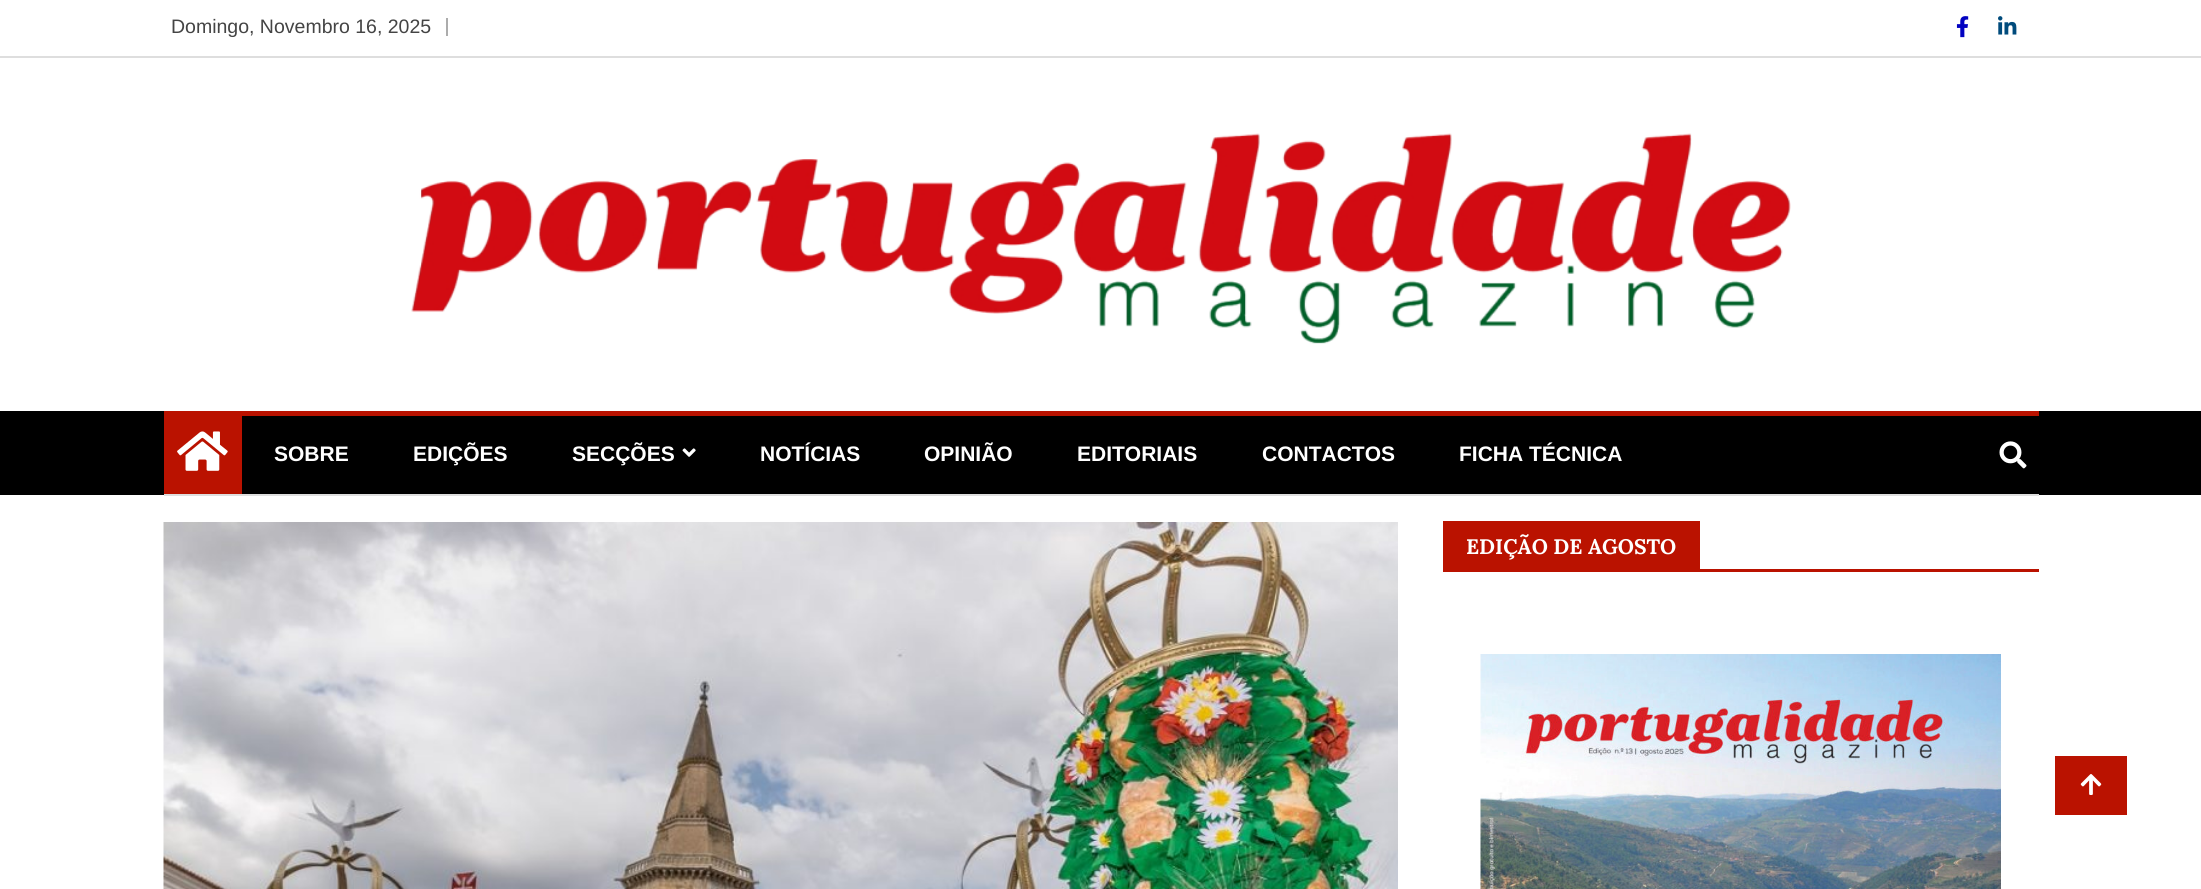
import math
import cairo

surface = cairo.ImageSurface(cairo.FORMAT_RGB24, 2201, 889)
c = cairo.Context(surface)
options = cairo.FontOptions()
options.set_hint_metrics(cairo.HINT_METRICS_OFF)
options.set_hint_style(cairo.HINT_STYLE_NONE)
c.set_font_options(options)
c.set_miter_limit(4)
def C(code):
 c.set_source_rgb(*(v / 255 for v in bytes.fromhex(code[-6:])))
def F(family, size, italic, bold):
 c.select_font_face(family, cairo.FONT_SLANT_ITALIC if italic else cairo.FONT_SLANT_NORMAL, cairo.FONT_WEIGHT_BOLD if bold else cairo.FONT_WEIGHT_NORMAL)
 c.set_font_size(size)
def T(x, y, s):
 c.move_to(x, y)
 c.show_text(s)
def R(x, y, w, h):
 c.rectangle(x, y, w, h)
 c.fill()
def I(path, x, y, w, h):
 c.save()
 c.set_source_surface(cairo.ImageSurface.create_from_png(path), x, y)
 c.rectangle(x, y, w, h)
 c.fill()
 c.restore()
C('ffffff')
c.paint()
C('dedede')
R(0,56,2201,2)
C('acacac')
R(446,18,2,18)
F('Liberation Sans',19.5,0,0)
C('444444')
T(171,33,'Domingo, Novembro 16, 2025')
I('1.png',1956,16,13,22)
I('2.png',1998,16,19,19)
I('3.png',411,133,1380,211)
C('000000')
R(0,411,2201,84)
C('ba1200')
R(164,411,1875,5)
C('dedede')
R(164,494,1875,2)
C('ba1200')
R(164,416,78,78)
I('4.png',177,431,51,40)
F('Liberation Sans',21,0,1)
C('ffffff')
T(274,461,'SOBRE')
T(413,461,'EDIÇÕES')
T(572,461,'SECÇÕES')
I('5.png',682,448,14,9)
T(760,461,'NOTÍCIAS')
T(924,461,'OPINIÃO')
T(1077,461,'EDITORIAIS')
T(1262,461,'CONTACTOS')
T(1459,461,'FICHA TÉCNICA')
I('6.png',1999,441,28,28)
I('7.png',163,522,1235,367)
C('ba1200')
R(1700,569,339,3)
R(1443,521,257,51)
F('Lora',21,0,1)
C('ffffff')
T(1466,554,'EDIÇÃO DE AGOSTO')
I('8.png',1480,654,521,235)
C('ba1200')
R(2055,756,72,59)
I('9.png',2080,774,22,21)
surface.write_to_png('o.png')
